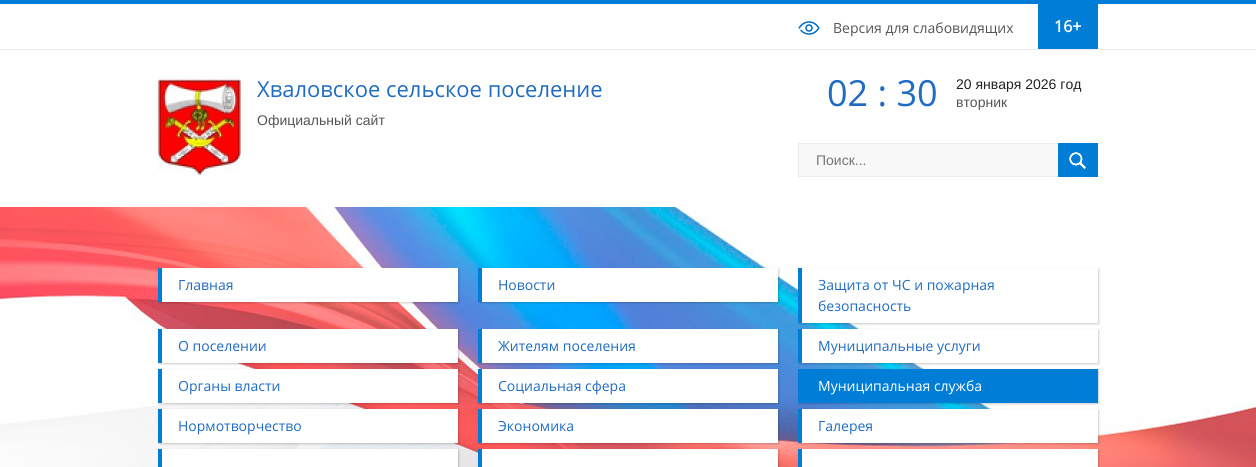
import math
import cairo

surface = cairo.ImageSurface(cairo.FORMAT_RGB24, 1256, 467)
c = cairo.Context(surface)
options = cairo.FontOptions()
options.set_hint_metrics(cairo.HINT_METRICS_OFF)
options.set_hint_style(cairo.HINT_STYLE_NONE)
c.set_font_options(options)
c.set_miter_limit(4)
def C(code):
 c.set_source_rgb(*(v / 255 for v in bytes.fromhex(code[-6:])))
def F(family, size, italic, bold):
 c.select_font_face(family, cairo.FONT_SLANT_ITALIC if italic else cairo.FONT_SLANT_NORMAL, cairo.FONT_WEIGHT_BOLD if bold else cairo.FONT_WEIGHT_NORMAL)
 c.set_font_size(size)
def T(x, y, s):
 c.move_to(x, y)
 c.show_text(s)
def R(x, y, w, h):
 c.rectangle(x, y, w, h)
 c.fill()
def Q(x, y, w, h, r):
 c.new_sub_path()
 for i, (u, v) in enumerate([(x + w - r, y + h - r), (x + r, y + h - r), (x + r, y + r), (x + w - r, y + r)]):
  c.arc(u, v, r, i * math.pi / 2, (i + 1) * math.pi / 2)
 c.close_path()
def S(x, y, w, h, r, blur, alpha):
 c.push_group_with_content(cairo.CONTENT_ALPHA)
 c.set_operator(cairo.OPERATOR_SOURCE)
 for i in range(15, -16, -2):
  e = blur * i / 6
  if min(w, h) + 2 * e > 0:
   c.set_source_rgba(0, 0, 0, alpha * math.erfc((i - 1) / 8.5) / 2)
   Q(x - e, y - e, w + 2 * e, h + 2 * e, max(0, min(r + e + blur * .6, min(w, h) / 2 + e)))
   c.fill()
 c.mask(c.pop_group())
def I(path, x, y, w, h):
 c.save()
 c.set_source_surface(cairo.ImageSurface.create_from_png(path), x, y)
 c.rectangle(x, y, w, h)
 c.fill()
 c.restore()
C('ffffff')
c.paint()
C('007ed7')
R(0,0,1256,4)
C('ececec')
R(0,49,1256,1)
I('1.png',798,21,22,14)
F('Open Sans',14,0,0)
C('555555')
T(833,33,'Версия для слабовидящих')
C('007ed7')
R(1038,4,60,45)
F('Open Sans',16,0,1)
C('ffffff')
T(1054,32,'16+')
I('2.png',158,79,83,97)
F('Open Sans',22,0,0)
C('1f6cc2')
T(257,97,'Хваловское сельское поселение')
F('Liberation Sans',14,0,0)
C('555555')
T(257,125,'Официальный сайт')
F('Open Sans',36,0,0)
C('1f6cc2')
T(827,106,'02 : 30')
F('Liberation Sans',14,0,0)
C('222222')
T(956,89,'20 января 2026 год')
C('555555')
T(956,107,'вторник')
C('f8f8f8')
R(799,144,259,32)
c.rectangle(798.5,143.5,299,33)
C('ececec')
c.set_line_width(1)
c.stroke()
C('757575')
T(816,165,'Поиск...')
I('3.png',1058,143,40,34)
I('4.png',0,207,1256,260)
C('000000')
S(159,269,300,34,0,1,.2)
C('ffffff')
R(162,268,296,34)
C('007ed7')
R(158,268,4,34)
F('Open Sans',14,0,0)
C('1f6cc2')
T(178,290,'Главная')
C('000000')
S(479,269,300,34,0,1,.2)
C('ffffff')
R(482,268,296,34)
C('007ed7')
R(478,268,4,34)
C('1f6cc2')
T(498,290,'Новости')
C('000000')
S(799,269,300,55,0,1,.2)
C('ffffff')
R(802,268,296,55)
C('007ed7')
R(798,268,4,55)
C('1f6cc2')
T(818,290,'Защита от ЧС и пожарная')
T(818,311,'безопасность')
C('000000')
S(159,330,300,34,0,1,.2)
C('ffffff')
R(162,329,296,34)
C('007ed7')
R(158,329,4,34)
C('1f6cc2')
T(178,351,'О поселении')
C('000000')
S(479,330,300,34,0,1,.2)
C('ffffff')
R(482,329,296,34)
C('007ed7')
R(478,329,4,34)
C('1f6cc2')
T(498,351,'Жителям поселения')
C('000000')
S(799,330,300,34,0,1,.2)
C('ffffff')
R(802,329,296,34)
C('007ed7')
R(798,329,4,34)
C('1f6cc2')
T(818,351,'Муниципальные услуги')
C('000000')
S(159,370,300,34,0,1,.2)
C('ffffff')
R(162,369,296,34)
C('007ed7')
R(158,369,4,34)
C('1f6cc2')
T(178,391,'Органы власти')
C('000000')
S(479,370,300,34,0,1,.2)
C('ffffff')
R(482,369,296,34)
C('007ed7')
R(478,369,4,34)
C('1f6cc2')
T(498,391,'Социальная сфера')
C('000000')
S(799,370,300,34,0,1,.2)
C('007ed7')
R(798,369,300,34)
C('ffffff')
T(818,391,'Муниципальная служба')
C('000000')
S(159,410,300,34,0,1,.2)
C('ffffff')
R(162,409,296,34)
C('007ed7')
R(158,409,4,34)
C('1f6cc2')
T(178,431,'Нормотворчество')
C('000000')
S(479,410,300,34,0,1,.2)
C('ffffff')
R(482,409,296,34)
C('007ed7')
R(478,409,4,34)
C('1f6cc2')
T(498,431,'Экономика')
C('000000')
S(799,410,300,34,0,1,.2)
C('ffffff')
R(802,409,296,34)
C('007ed7')
R(798,409,4,34)
C('1f6cc2')
T(818,431,'Галерея')
C('000000')
S(159,450,300,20,0,1,.2)
C('ffffff')
R(162,449,296,18)
C('007ed7')
R(158,449,4,18)
C('000000')
S(479,450,300,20,0,1,.2)
C('ffffff')
R(482,449,296,18)
C('007ed7')
R(478,449,4,18)
C('000000')
S(799,450,300,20,0,1,.2)
C('ffffff')
R(802,449,296,18)
C('007ed7')
R(798,449,4,18)
surface.write_to_png('o.png')
